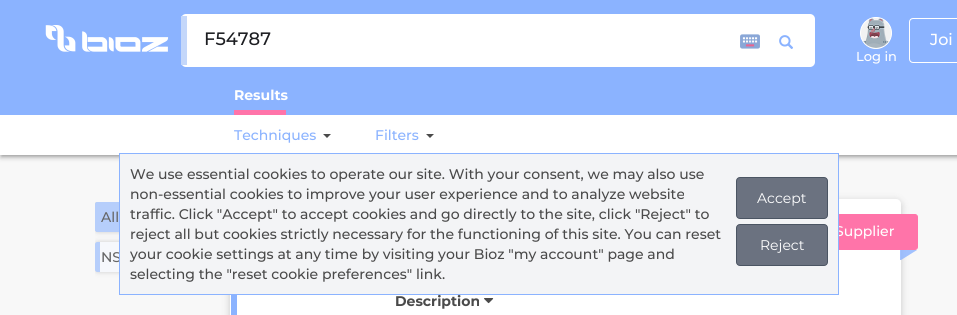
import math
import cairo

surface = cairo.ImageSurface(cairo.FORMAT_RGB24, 957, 315)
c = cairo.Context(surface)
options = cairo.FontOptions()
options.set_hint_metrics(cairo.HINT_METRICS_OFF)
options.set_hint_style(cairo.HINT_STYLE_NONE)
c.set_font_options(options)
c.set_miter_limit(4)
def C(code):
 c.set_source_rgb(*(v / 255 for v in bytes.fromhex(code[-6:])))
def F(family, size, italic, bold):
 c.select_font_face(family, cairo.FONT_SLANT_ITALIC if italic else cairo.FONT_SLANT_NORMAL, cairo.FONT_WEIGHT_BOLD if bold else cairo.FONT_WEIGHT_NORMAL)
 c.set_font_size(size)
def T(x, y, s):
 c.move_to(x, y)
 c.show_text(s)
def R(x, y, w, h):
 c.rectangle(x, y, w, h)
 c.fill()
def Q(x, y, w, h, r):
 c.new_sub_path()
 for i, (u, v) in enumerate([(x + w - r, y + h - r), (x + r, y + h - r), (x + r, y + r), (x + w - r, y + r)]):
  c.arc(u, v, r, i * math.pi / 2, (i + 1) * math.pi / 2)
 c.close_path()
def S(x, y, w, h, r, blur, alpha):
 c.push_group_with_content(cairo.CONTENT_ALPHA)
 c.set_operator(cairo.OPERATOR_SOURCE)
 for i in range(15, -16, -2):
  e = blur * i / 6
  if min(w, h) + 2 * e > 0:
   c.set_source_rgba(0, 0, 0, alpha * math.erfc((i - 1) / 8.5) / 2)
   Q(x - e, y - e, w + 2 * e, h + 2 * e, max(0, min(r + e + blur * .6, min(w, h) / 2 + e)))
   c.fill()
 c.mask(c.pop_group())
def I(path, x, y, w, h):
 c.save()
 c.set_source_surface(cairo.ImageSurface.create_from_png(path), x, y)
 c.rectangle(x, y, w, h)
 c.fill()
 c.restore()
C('f8f8f8')
c.paint()
C('000000')
S(0,1,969,155,0,4,.12)
S(2,5,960,151,0,1.5,.2)
S(0,3,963,155,0,2,.14)
C('8bb3ff')
R(0,0,957,115)
I('1.png',45,25,124,27)
C('ffffff')
Q(181,14,634,53,5)
c.fill()
C('c4d7fa')
R(181,16,6,49)
F('Montserrat Medium',18,0,0)
C('1d1e22')
T(204,45,'F54787')
I('2.png',740,34,20,15)
I('3.png',779,35,14,14)
Q(909.5,18.5,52,44,3.5)
C('ffffff')
c.set_line_width(1)
c.stroke()
F('Montserrat Medium',16,0,0)
T(930,45,'Joi')
C('f2f2f2')
c.new_path()
c.arc(876,33,15.5,0,2 * math.pi)
c.fill_preserve()
C('ffffff')
c.stroke()
I('4.png',863,18,26,30)
F('Montserrat Medium',13,0,0)
T(856,61,'Log in')
F('Montserrat',14,0,1)
T(234,100,'Results')
C('ff74a9')
R(234,110,52,5)
C('ffffff')
R(0,115,957,40)
F('Montserrat Medium',14,0,0)
C('8bb3ff')
T(234,140,'Techniques')
C('4a4a4a')
c.new_path()
c.move_to(323,134)
c.line_to(331,134)
c.line_to(327,138)
c.close_path()
c.fill()
C('8bb3ff')
T(375,140,'Filters')
C('4a4a4a')
c.new_path()
c.move_to(426,134)
c.line_to(434,134)
c.line_to(430,138)
c.close_path()
c.fill()
c.save()
c.rectangle(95,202,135,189)
c.clip()
C('cccccc')
S(95,202,120,30,3,2.5,1)
c.restore()
C('b6cefb')
Q(95,202,120,30,3)
c.fill()
c.new_path()
c.move_to(98,202)
c.line_to(100,202)
c.line_to(100,232)
c.line_to(98,232)
c.curve_to(96.5,232,95,230.5,95,229)
c.line_to(95,205)
c.curve_to(95,203.5,96.5,202,98,202)
c.close_path()
c.fill()
Q(95,202,5,30,2.5)
c.fill()
C('666666')
T(101,222,'All')
c.save()
c.rectangle(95,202,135,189)
c.clip()
C('cccccc')
S(95,242,120,30,3,2.5,1)
c.restore()
C('f6f8fc')
Q(95,242,120,30,3)
c.fill()
C('b6cefb')
c.new_path()
c.move_to(98,242)
c.line_to(100,242)
c.line_to(100,272)
c.line_to(98,272)
c.curve_to(96.5,272,95,270.5,95,269)
c.line_to(95,245)
c.curve_to(95,243.5,96.5,242,98,242)
c.close_path()
c.fill()
Q(95,242,5,30,2.5)
c.fill()
C('666666')
T(101,262,'NS')
C('000000')
S(230,201,671,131,5,4,.2)
C('ffffff')
Q(230.5,199.5,670,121,4.5)
c.fill_preserve()
c.stroke()
C('8bb3ff')
R(231,295,6,20)
C('ff74a9')
Q(778.5,214.5,139,35,2.5)
c.fill_preserve()
c.stroke()
C('ffffff')
T(835,236,'Supplier')
c.set_source_rgba(0.545,0.702,1,0.8)
c.new_path()
c.move_to(900,250)
c.line_to(917,250)
c.line_to(901,260)
c.line_to(900,260)
c.close_path()
c.fill()
F('Montserrat',14,0,1)
C('4a4a4a')
T(395,306,'Description')
I('5.png',484,298,10,6)
C('f3f4f6')
c.rectangle(119.5,153.5,719,141)
c.fill_preserve()
C('8bb3ff')
c.stroke()
F('Montserrat Medium',14,0,0)
C('4a4a4a')
T(130,179,'We use essential cookies to operate our site. With your consent, we may also use')
T(130,199,'non-essential cookies to improve your user experience and to analyze website')
T(130,219,'traffic. Click "Accept" to accept cookies and go directly to the site, click "Reject" to')
T(130,239,'reject all but cookies strictly necessary for the functioning of this site. You can reset')
T(130,259,'your cookie settings at any time by visiting your Bioz "my account" page and')
T(130,279,'selecting the "reset cookie preferences" link.')
C('6b7280')
Q(736.5,177.5,91,41,3.5)
c.fill_preserve()
C('4b5563')
c.stroke()
F('Montserrat',14,0,0)
C('ffffff')
T(757,203,'Accept')
C('6b7280')
Q(736.5,224.5,91,41,3.5)
c.fill_preserve()
C('4b5563')
c.stroke()
C('ffffff')
T(760,250,'Reject')
surface.write_to_png('o.png')
